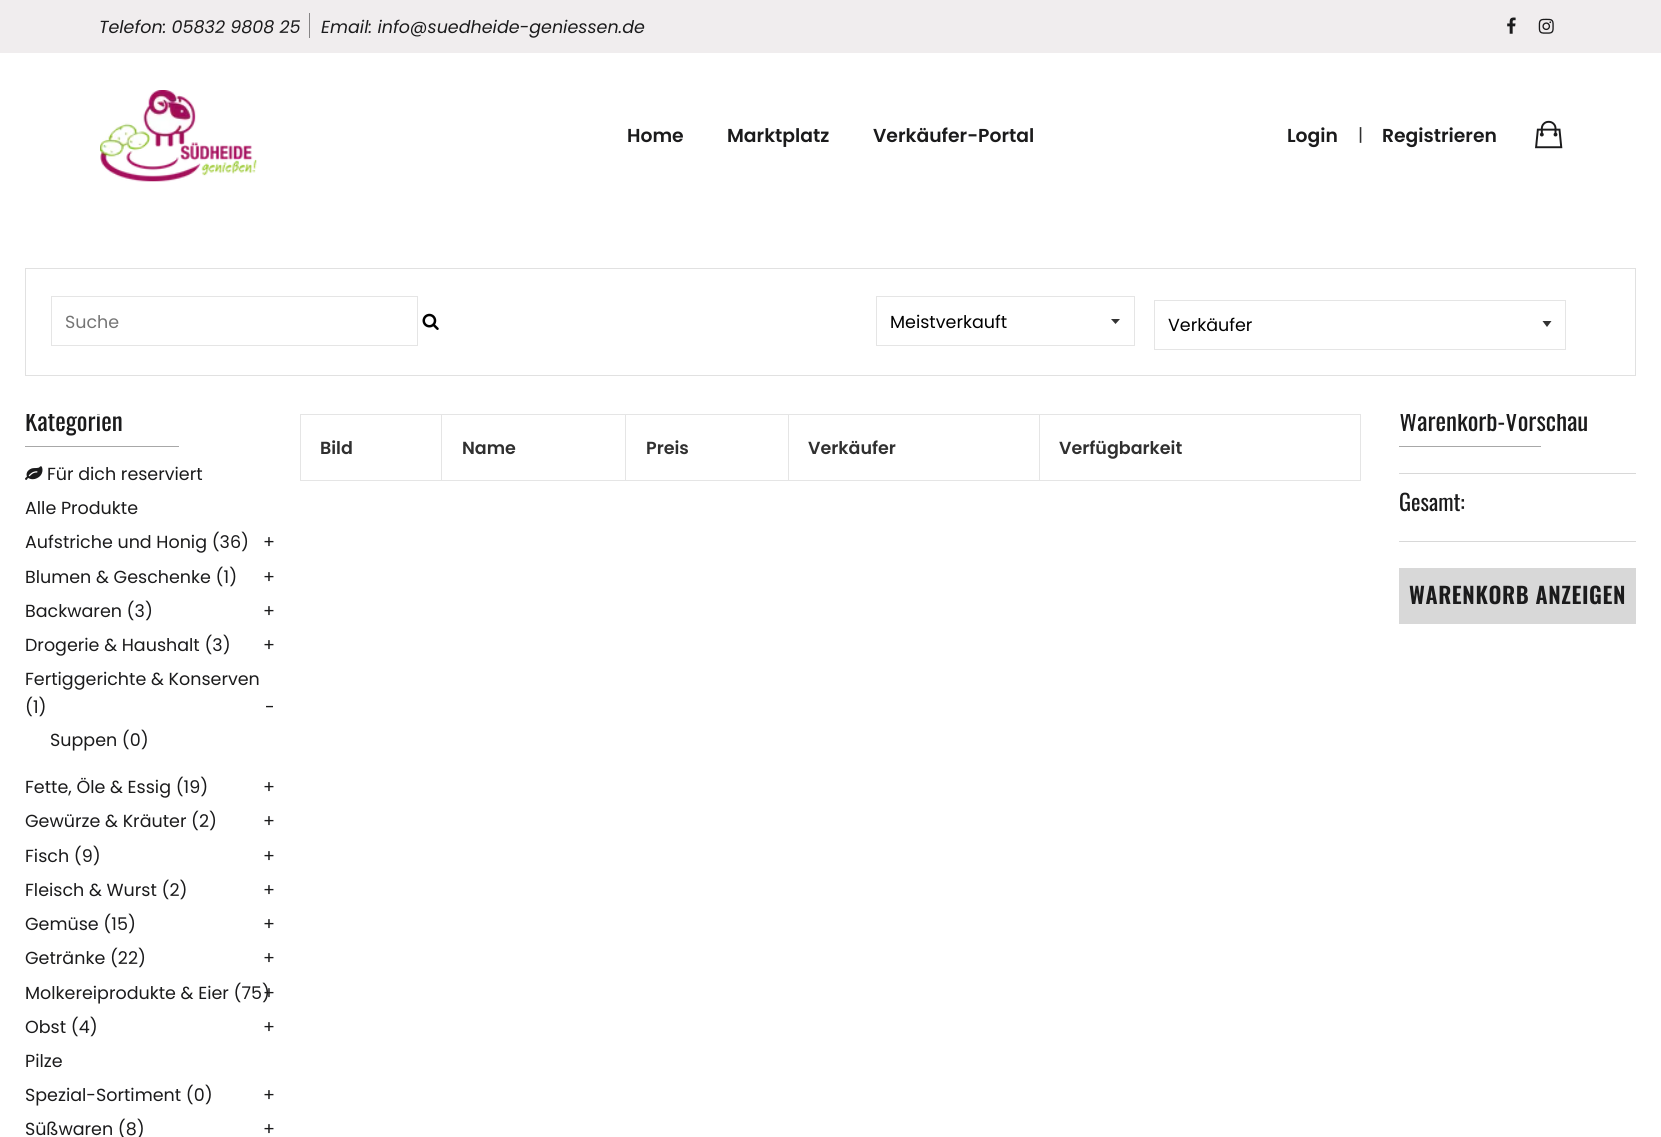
import math
import cairo

surface = cairo.ImageSurface(cairo.FORMAT_RGB24, 1661, 1137)
c = cairo.Context(surface)
options = cairo.FontOptions()
options.set_hint_metrics(cairo.HINT_METRICS_OFF)
options.set_hint_style(cairo.HINT_STYLE_NONE)
c.set_font_options(options)
c.set_miter_limit(4)
def C(code):
 c.set_source_rgb(*(v / 255 for v in bytes.fromhex(code[-6:])))
def F(family, size, italic, bold):
 c.select_font_face(family, cairo.FONT_SLANT_ITALIC if italic else cairo.FONT_SLANT_NORMAL, cairo.FONT_WEIGHT_BOLD if bold else cairo.FONT_WEIGHT_NORMAL)
 c.set_font_size(size)
def T(x, y, s):
 c.move_to(x, y)
 c.show_text(s)
def L(x, y, s, letter, word):
 c.move_to(x, y)
 for ch in s:
  c.show_text(ch)
  c.rel_move_to(letter + word * (ch == ' '), 0)
def R(x, y, w, h):
 c.rectangle(x, y, w, h)
 c.fill()
def I(path, x, y, w, h):
 c.save()
 c.set_source_surface(cairo.ImageSurface.create_from_png(path), x, y)
 c.rectangle(x, y, w, h)
 c.fill()
 c.restore()
C('ffffff')
c.paint()
C('f0edee')
R(0,0,1661,53)
F('Poppins',17.5,1,0)
C('1b1b1c')
T(99,33,'Telefon: 05832 9808 25')
C('868485')
R(309,13,1,25)
C('1b1b1c')
T(321,33,'Email: info@suedheide-geniessen.de')
I('1.png',1507,17,9,17)
I('2.png',1538,18,16,16)
I('3.png',100,90,157,92)
F('Poppins SemiBold',18.75,0,0)
T(627,142,'Home')
T(727,142,'Marktplatz')
T(873,142,'Verkäufer-Portal')
T(1287,142,'Login')
F('Poppins',17.5,0,0)
C('303030')
T(1358,141,'|')
F('Poppins SemiBold',18.75,0,0)
C('1b1b1c')
T(1382,142,'Registrieren')
I('4.png',1535,120,28,29)
c.rectangle(25.5,268.5,1610,107)
C('e1e1e1')
c.set_line_width(1)
c.stroke()
c.rectangle(51.5,296.5,366,49)
C('e5e5e5')
c.stroke()
F('Poppins',17.5,0,0)
C('757575')
T(65,328,'Suche')
I('5.png',422,313,17,17)
C('333333')
c.new_path()
c.move_to(1111,319)
c.line_to(1115.5,324)
c.line_to(1120,319)
c.close_path()
c.fill()
c.rectangle(876.5,296.5,258,49)
C('e5e5e5')
c.stroke()
C('000000')
T(890,328,'Meistverkauft')
C('333333')
c.new_path()
c.move_to(1542.5,321)
c.line_to(1547,327)
c.line_to(1551.5,321)
c.close_path()
c.fill()
c.rectangle(1154.5,300.5,411,49)
C('e5e5e5')
c.stroke()
C('000000')
T(1168,331,'Verkäufer')
c.save()
c.rectangle(25,414,256,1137)
c.clip()
F('Oswald',25,0,0)
C('1b1b1c')
T(25,431,'Kategorien')
c.restore()
C('a8a8a8')
R(25,446,154,1)
I('6.png',25,466,18,14)
C('1b1b1c')
T(47,480,'Für dich reserviert')
T(25,514,'Alle Produkte')
T(25,548,'Aufstriche und Honig (36)')
T(263,548,'+')
T(25,583,'Blumen & Geschenke (1)')
T(263,583,'+')
T(25,617,'Backwaren (3)')
T(263,617,'+')
T(25,651,'Drogerie & Haushalt (3)')
T(263,651,'+')
T(25,685,'Fertiggerichte & Konserven')
T(25,713,'(1)')
T(265,713,'-')
T(50,746,'Suppen (0)')
T(25,793,'Fette, Öle & Essig (19)')
T(263,793,'+')
T(25,827,'Gewürze & Kräuter (2)')
T(263,827,'+')
T(25,862,'Fisch (9)')
T(263,862,'+')
T(25,896,'Fleisch & Wurst (2)')
T(263,896,'+')
T(25,930,'Gemüse (15)')
T(263,930,'+')
T(25,964,'Getränke (22)')
T(263,964,'+')
T(25,999,'Molkereiprodukte & Eier (75)')
T(263,999,'+')
T(25,1033,'Obst (4)')
T(263,1033,'+')
T(25,1067,'Pilze')
T(25,1101,'Spezial-Sortiment (0)')
T(263,1101,'+')
T(25,1135,'Süßwaren (8)')
T(263,1135,'+')
C('e5e5e5')
R(1039,414,322,1)
R(1360,414,1,67)
R(1039,480,322,1)
R(1039,414,1,67)
R(788,414,252,1)
R(788,480,252,1)
R(788,414,1,67)
R(625,414,164,1)
R(625,480,164,1)
R(625,414,1,67)
R(441,414,185,1)
R(441,480,185,1)
R(441,414,1,67)
R(300,414,143,1)
R(300,480,143,1)
R(300,414,1,67)
F('Poppins SemiBold',17.5,0,0)
C('303030')
T(320,454,'Bild')
T(462,454,'Name')
T(646,454,'Preis')
T(808,454,'Verkäufer')
T(1059,454,'Verfügbarkeit')
c.save()
c.rectangle(1399,414,237,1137)
c.clip()
F('Oswald',25,0,0)
C('1b1b1c')
T(1399,431,'Warenkorb-Vorschau')
c.restore()
C('a8a8a8')
R(1399,446,142,1)
C('d8d8d8')
R(1399,473,237,1)
R(1399,541,237,1)
F('Oswald',22.5,0,0)
C('1b1b1c')
T(1399,511,'Gesamt:')
C('d8d8d8')
R(1399,568,237,56)
F('Oswald SemiBold',22.5,0,0)
C('1b1b1c')
L(1409,604,'WARENKORB ANZEIGEN',.6,0)
surface.write_to_png('o.png')
